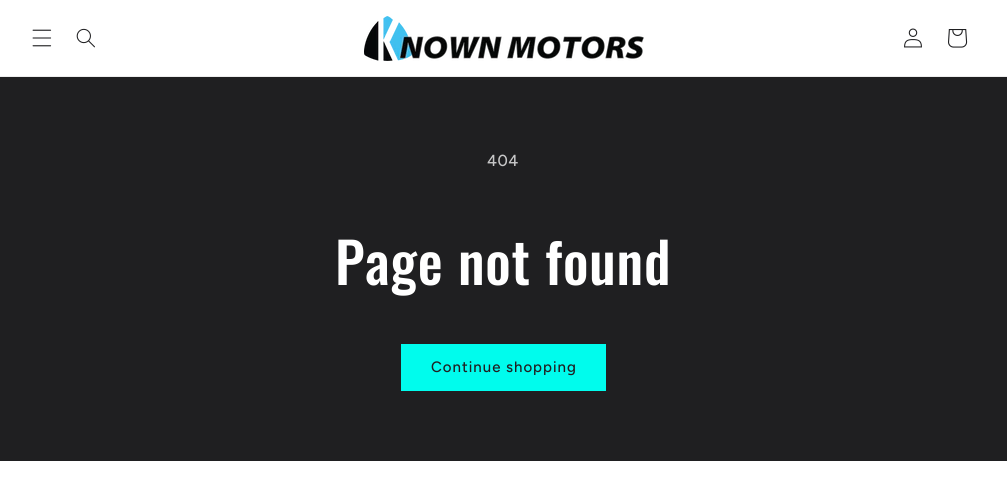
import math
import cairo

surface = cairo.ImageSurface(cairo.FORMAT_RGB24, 1007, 481)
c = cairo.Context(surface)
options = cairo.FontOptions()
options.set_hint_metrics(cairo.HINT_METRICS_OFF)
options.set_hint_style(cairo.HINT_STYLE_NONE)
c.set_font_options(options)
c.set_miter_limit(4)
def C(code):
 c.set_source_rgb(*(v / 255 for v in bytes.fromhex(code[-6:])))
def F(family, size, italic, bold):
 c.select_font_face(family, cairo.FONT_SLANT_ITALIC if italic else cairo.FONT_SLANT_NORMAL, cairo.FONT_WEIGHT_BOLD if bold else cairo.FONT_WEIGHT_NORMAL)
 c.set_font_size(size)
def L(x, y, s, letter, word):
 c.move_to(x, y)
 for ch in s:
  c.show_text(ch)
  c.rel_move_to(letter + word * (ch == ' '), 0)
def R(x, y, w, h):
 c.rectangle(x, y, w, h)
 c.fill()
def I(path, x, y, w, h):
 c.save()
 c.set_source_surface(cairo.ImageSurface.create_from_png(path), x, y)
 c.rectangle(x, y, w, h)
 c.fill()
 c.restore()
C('1f1f21')
c.paint()
C('ffffff')
R(0,0,1007,76)
C('ededed')
R(0,76,1007,1)
I('1.png',32,29,20,18)
I('2.png',76,28,19,20)
I('3.png',364,16,280,45)
I('4.png',904,28,18,20)
I('5.png',948,29,20,19)
F('Figtree Medium',16,0,0)
C('c7c7c8')
L(487,166,'404',.5,0)
F('Oswald Medium',56,0,0)
C('ffffff')
L(335,285,'Page not found',.8,0)
C('00fced')
R(401,344,205,47)
F('Figtree Medium',15,0,0)
C('1f1f21')
L(431,372,'Continue shopping',1,0)
C('ffffff')
R(0,461,1007,20)
surface.write_to_png('o.png')
